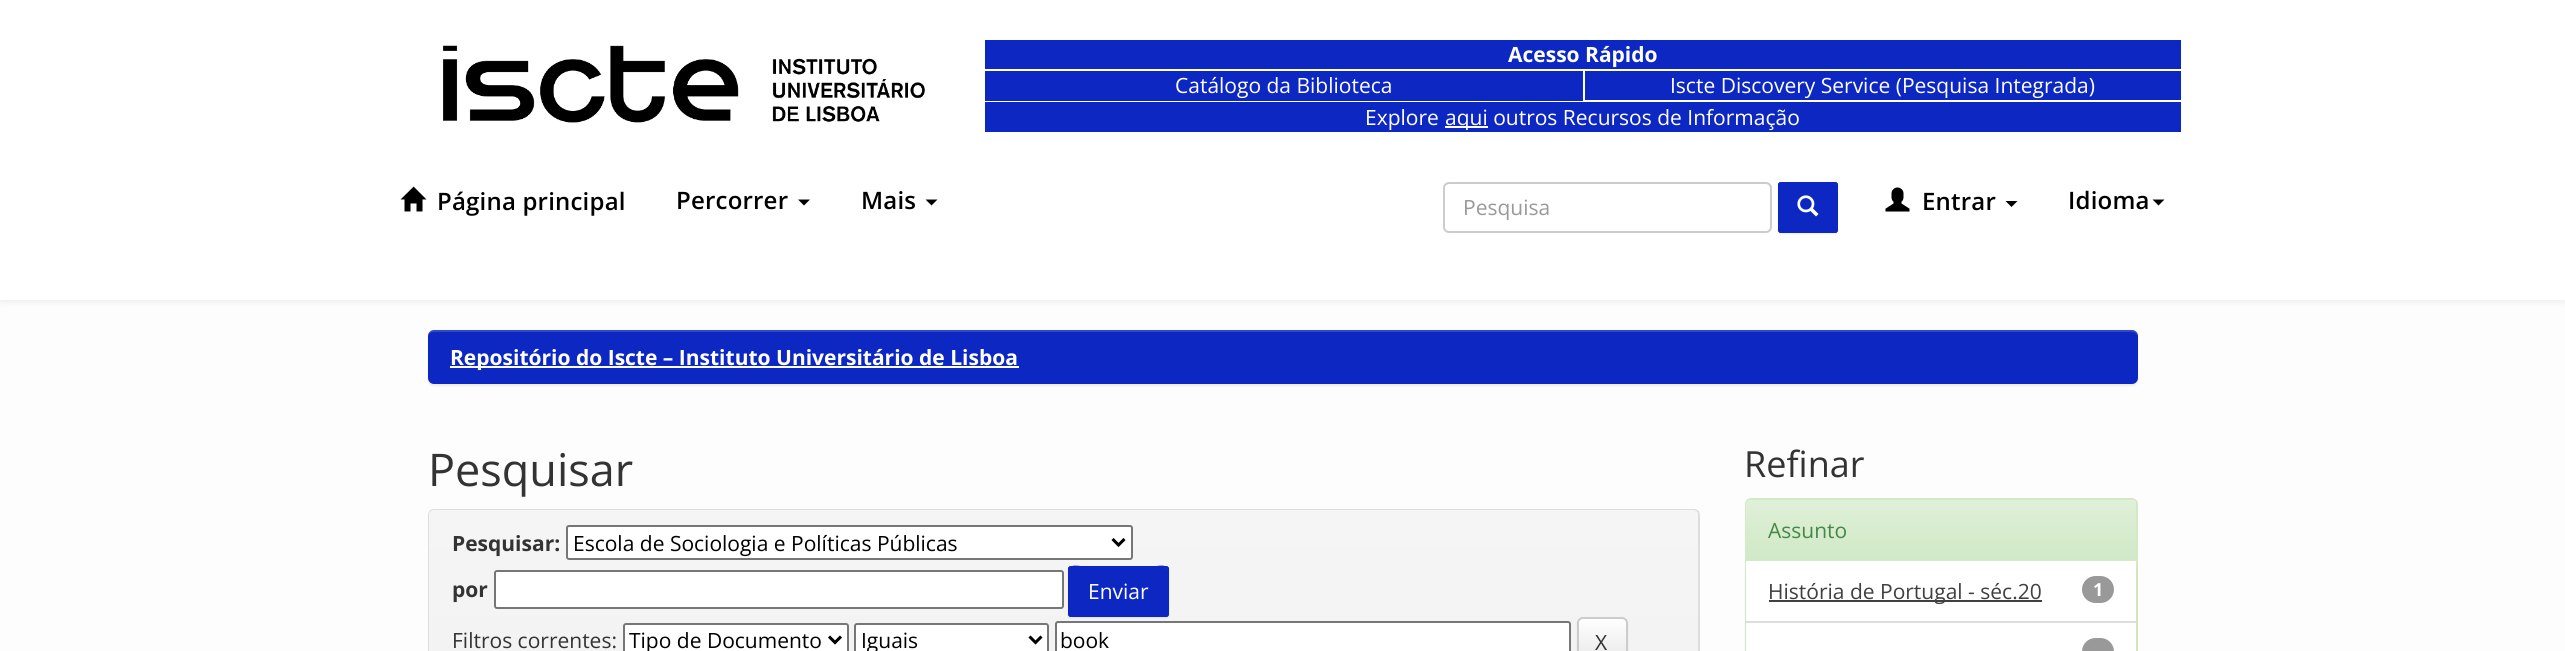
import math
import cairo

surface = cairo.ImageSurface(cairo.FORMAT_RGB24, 2565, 651)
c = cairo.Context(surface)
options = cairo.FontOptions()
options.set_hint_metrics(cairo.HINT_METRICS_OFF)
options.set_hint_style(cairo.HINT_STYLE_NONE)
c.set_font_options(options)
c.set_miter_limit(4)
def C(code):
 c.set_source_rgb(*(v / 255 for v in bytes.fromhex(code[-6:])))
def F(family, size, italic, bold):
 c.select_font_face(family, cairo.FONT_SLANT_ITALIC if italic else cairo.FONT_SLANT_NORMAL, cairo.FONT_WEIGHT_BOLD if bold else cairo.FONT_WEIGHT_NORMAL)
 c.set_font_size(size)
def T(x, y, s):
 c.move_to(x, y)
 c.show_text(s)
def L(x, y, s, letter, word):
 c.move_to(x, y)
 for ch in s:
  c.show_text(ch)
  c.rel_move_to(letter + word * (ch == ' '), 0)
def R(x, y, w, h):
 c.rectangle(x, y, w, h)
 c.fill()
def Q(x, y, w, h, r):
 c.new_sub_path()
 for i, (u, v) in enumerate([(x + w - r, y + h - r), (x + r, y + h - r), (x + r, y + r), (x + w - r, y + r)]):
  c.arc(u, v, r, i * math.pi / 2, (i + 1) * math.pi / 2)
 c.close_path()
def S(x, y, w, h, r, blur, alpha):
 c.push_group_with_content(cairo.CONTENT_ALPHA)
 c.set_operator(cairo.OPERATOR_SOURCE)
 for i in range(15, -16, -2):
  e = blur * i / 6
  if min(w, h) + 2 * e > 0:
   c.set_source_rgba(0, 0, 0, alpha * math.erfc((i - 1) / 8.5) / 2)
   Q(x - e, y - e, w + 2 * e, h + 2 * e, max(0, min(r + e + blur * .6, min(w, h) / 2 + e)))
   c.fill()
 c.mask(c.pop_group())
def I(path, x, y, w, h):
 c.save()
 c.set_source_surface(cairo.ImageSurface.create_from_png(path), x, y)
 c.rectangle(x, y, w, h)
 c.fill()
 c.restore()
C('fdfdfd')
c.paint()
C('000000')
S(0,2,2565,300,0,4,.07)
C('ffffff')
R(0,0,2565,300)
I('1.png',443,45,482,78)
C('0d28c2')
R(985,40,1196,29)
F('Open Sans',21,0,1)
C('ffffff')
T(1508,62,'Acesso Rápido')
C('0d28c2')
R(985,71,598,30)
F('Open Sans',21,0,0)
C('ffffff')
T(1175,93,'Catálogo da Biblioteca')
C('0d28c2')
R(1585,71,596,29)
C('ffffff')
T(1670,93,'Iscte Discovery Service (Pesquisa Integrada)')
C('0d28c2')
R(985,102,1196,30)
C('ffffff')
T(1365,125,'Explore')
R(1445,126,43,2)
T(1445,125,'aqui outros Recursos de Informação')
I('2.png',400,186,27,26)
F('Open Sans SemiBold',24,0,0)
C('000000')
L(437,210,'Página principal',.2,0)
L(676,209,'Percorrer',.2,0)
c.new_path()
c.move_to(798,199.5)
c.line_to(810,199.5)
c.line_to(804,205.5)
c.close_path()
c.fill()
L(861,209,'Mais',.2,0)
c.new_path()
c.move_to(925.5,199.5)
c.line_to(937.5,199.5)
c.line_to(931.5,205.5)
c.close_path()
c.fill()
C('ececec')
c.new_path()
c.move_to(1449,184)
c.line_to(1766,184)
c.curve_to(1768,184,1770,187,1770,189)
c.line_to(1770,188)
c.curve_to(1770,185,1768,183,1765,183)
c.line_to(1450,183)
c.curve_to(1448,183,1446,184,1445,186)
c.curve_to(1446,185,1448,184,1449,184)
c.close_path()
c.fill()
Q(1444,183,327,49,5)
C('cccccc')
c.stroke()
F('Open Sans',21,0,0)
C('999999')
T(1463,215,'Pesquisa')
C('000000')
S(1778,183,60,51,3,1,.07)
C('0d28c2')
Q(1778,182,60,51,3)
c.fill()
C('3148cb')
c.new_path()
c.move_to(1780,184)
c.line_to(1834,184)
c.curve_to(1835,184,1836,185,1836,186)
c.curve_to(1836,180,1831,183,1826,183)
c.line_to(1790,183)
c.curve_to(1784,183,1779,180,1779,186)
c.close_path()
c.fill()
Q(1779,183,58,49,2)
C('0d28c2')
c.stroke()
I('3.png',1797,195,22,22)
I('4.png',1885,187,25,25)
F('Open Sans SemiBold',24,0,0)
C('000000')
L(1922,210,'Entrar',.2,0)
c.new_path()
c.move_to(2005.5,201)
c.line_to(2017.5,201)
c.line_to(2011.5,207)
c.close_path()
c.fill()
L(2068,209,'Idioma',.2,0)
c.new_path()
c.move_to(2152.5,199.5)
c.line_to(2164.5,199.5)
c.line_to(2158.5,205.5)
c.close_path()
c.fill()
C('000000')
S(428,332,1710,54,6,1,.07)
C('0d28c2')
Q(428,330,1710,54,6)
c.fill()
c.set_source_rgba(1,1,1,0.15)
c.new_path()
c.move_to(434,332)
c.line_to(2132,332)
c.curve_to(2135,332,2138,334,2138,338)
c.curve_to(2138,334,2137,330,2132,330)
c.line_to(434,330)
c.curve_to(429,330,428,334,428,338)
c.curve_to(428,334,430,332,434,332)
c.close_path()
c.fill()
C('ffffff')
R(450,366,569,2)
F('Open Sans',21,0,1)
T(450,365,'Repositório do Iscte – Instituto Universitário de Lisboa')
F('Open Sans',45,0,0)
C('333333')
T(428,486,'Pesquisar')
Q(429,510,1270,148,5)
C('dddddd')
c.stroke()
gradient = cairo.LinearGradient(1064,510,1064,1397)
gradient.add_color_stop_rgba(0,0.961,0.961,0.961,1)
gradient.add_color_stop_rgba(1,0.91,0.91,0.91,1)
c.set_source(gradient)
c.new_path()
c.move_to(434,510)
c.line_to(1693,510)
c.curve_to(1696,510,1698,512,1698,515)
c.line_to(1698,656)
c.line_to(429,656)
c.line_to(429,515)
c.curve_to(429,512,431,510,434,510)
c.close_path()
c.fill()
F('Open Sans',21,0,1)
C('333333')
T(452,551,'Pesquisar:')
C('ffffff')
Q(567,526,565,33,2)
c.fill_preserve()
C('767676')
c.stroke()
c.new_path()
c.move_to(1112.5,539)
c.line_to(1118.5,545)
c.line_to(1124.5,539)
C('000000')
c.set_line_width(3)
c.stroke()
F('Open Sans',21,0,0)
T(573,551,'Escola de Sociologia e Políticas Públicas')
F('Open Sans',21,0,1)
C('333333')
T(452,597,'por')
C('ffffff')
Q(495,571,568,37,2)
c.fill_preserve()
C('767676')
c.set_line_width(2)
c.stroke()
C('ffffff')
Q(1056,622,514,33,2)
c.fill_preserve()
C('767676')
c.stroke()
C('000000')
S(1068,567,101,51,3,1,.07)
C('0d28c2')
Q(1068,566,101,51,3)
c.fill()
C('3148cb')
c.new_path()
c.move_to(1071,568)
c.line_to(1166,568)
c.line_to(1167,570)
c.curve_to(1167,562,1155,567,1150,567)
c.line_to(1087,567)
c.curve_to(1082,567,1070,562,1070,570)
c.curve_to(1070,569,1070,568,1071,568)
c.close_path()
c.fill()
Q(1069,567,99,49,2)
C('0d28c2')
c.stroke()
F('Open Sans',21,0,0)
C('ffffff')
T(1088,599,'Enviar')
C('333333')
T(452,648,'Filtros correntes:')
C('ffffff')
Q(624,624,224,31,2)
c.fill_preserve()
C('767676')
c.stroke()
c.new_path()
c.move_to(829,636.5)
c.line_to(835,642.5)
c.line_to(841,636.5)
C('000000')
c.set_line_width(3)
c.stroke()
T(629,648,'Tipo de Documento')
C('ffffff')
Q(855,624,193,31,2)
c.fill_preserve()
C('767676')
c.set_line_width(2)
c.stroke()
c.new_path()
c.move_to(1029.5,636.5)
c.line_to(1035.5,642.5)
c.line_to(1041.5,636.5)
C('000000')
c.set_line_width(3)
c.stroke()
T(861,648,'Iguais')
T(1060,648,'book')
C('000000')
S(1577,618,51,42,6,1,.07)
c.save()
Q(1577,617,51,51,6)
c.clip()
gradient = cairo.LinearGradient(1602,618,1602,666)
gradient.add_color_stop_rgba(0,1,1,1,1)
gradient.add_color_stop_rgba(1,0.902,0.902,0.902,1)
c.set_source(gradient)
R(1577,618,51,33)
c.restore()
Q(1578,618,49,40,5)
C('cccccc')
c.set_line_width(2)
c.stroke()
C('333333')
T(1595,650,'X')
F('Open Sans',36,0,0)
T(1744,477,'Refinar')
Q(1746,499,391,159,5)
C('d6e9c6')
c.stroke()
gradient = cairo.LinearGradient(1941,500,1941,560)
gradient.add_color_stop_rgba(0,0.875,0.941,0.847,1)
gradient.add_color_stop_rgba(1,0.816,0.914,0.776,1)
c.set_source(gradient)
c.new_path()
c.move_to(1751,500)
c.line_to(2131,500)
c.curve_to(2134,500,2136,502,2136,505)
c.line_to(2136,560)
c.line_to(1746,560)
c.line_to(1746,505)
c.curve_to(1746,502,1748,500,1751,500)
c.close_path()
c.fill()
C('d6e9c6')
R(1746,560,390,1)
F('Open Sans',21,0,0)
C('468847')
T(1768,538,'Assunto')
C('000000')
S(1746,563,390,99,6,1.5,.07)
C('ffffff')
R(1746,561,390,60)
C('dddddd')
R(1746,621,390,2)
C('404041')
R(1769,600,273,2)
T(1768,599,'História de Portugal - séc.20')
C('999999')
Q(2082,576,32,27,13.5)
c.fill()
F('Open Sans',18,0,1)
C('ffffff')
T(2093,596,'1')
R(1746,623,390,28)
C('999999')
Q(2082,638,32,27,13.5)
c.fill()
surface.write_to_png('o.png')
